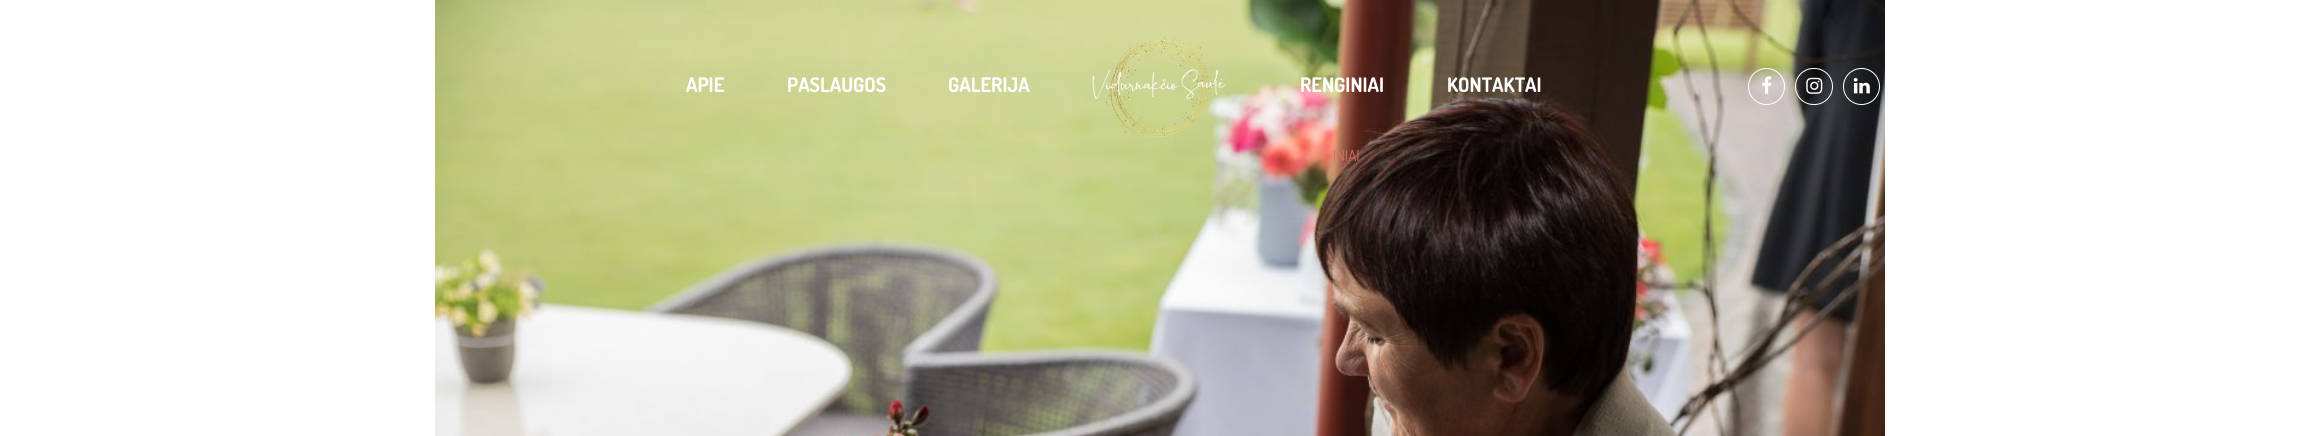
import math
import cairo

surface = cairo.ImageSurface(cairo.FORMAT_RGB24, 2320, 436)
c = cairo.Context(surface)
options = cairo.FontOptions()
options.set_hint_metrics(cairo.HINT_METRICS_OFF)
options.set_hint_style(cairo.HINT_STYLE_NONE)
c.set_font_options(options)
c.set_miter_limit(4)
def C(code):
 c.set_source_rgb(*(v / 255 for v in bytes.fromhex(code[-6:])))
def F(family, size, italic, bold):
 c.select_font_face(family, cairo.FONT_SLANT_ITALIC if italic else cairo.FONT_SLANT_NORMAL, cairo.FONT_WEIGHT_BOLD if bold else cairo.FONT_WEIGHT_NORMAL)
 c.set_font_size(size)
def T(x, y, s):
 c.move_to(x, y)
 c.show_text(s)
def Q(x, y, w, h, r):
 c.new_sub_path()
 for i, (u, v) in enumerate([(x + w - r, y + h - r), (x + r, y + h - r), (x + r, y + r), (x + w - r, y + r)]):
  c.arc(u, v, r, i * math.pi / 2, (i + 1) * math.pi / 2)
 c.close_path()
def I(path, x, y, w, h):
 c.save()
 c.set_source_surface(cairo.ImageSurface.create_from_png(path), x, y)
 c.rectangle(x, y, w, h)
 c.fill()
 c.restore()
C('ffffff')
c.paint()
I('1.png',435,0,1450,436)
I('2.png',1092,33,134,105)
F('Dosis',20,0,1)
C('ffffff')
T(686,92,'APIE')
T(787,92,'PASLAUGOS')
T(948,92,'GALERIJA')
T(1300,92,'RENGINIAI')
F('Dosis',15,0,0)
C('d07263')
T(1333,161,'INIAI')
F('Dosis',20,0,1)
C('ffffff')
T(1447,92,'KONTAKTAI')
c.new_path()
c.arc(1766.5,86.5,18,0,2 * math.pi)
c.set_line_width(1)
c.stroke()
I('3.png',1762,76,10,18)
Q(1795.5,68.5,37,36,18)
c.stroke()
I('4.png',1806,77,17,17)
c.arc(1861.5,86.5,18,0,2 * math.pi)
c.stroke()
I('5.png',1853,78,17,16)
surface.write_to_png('o.png')
